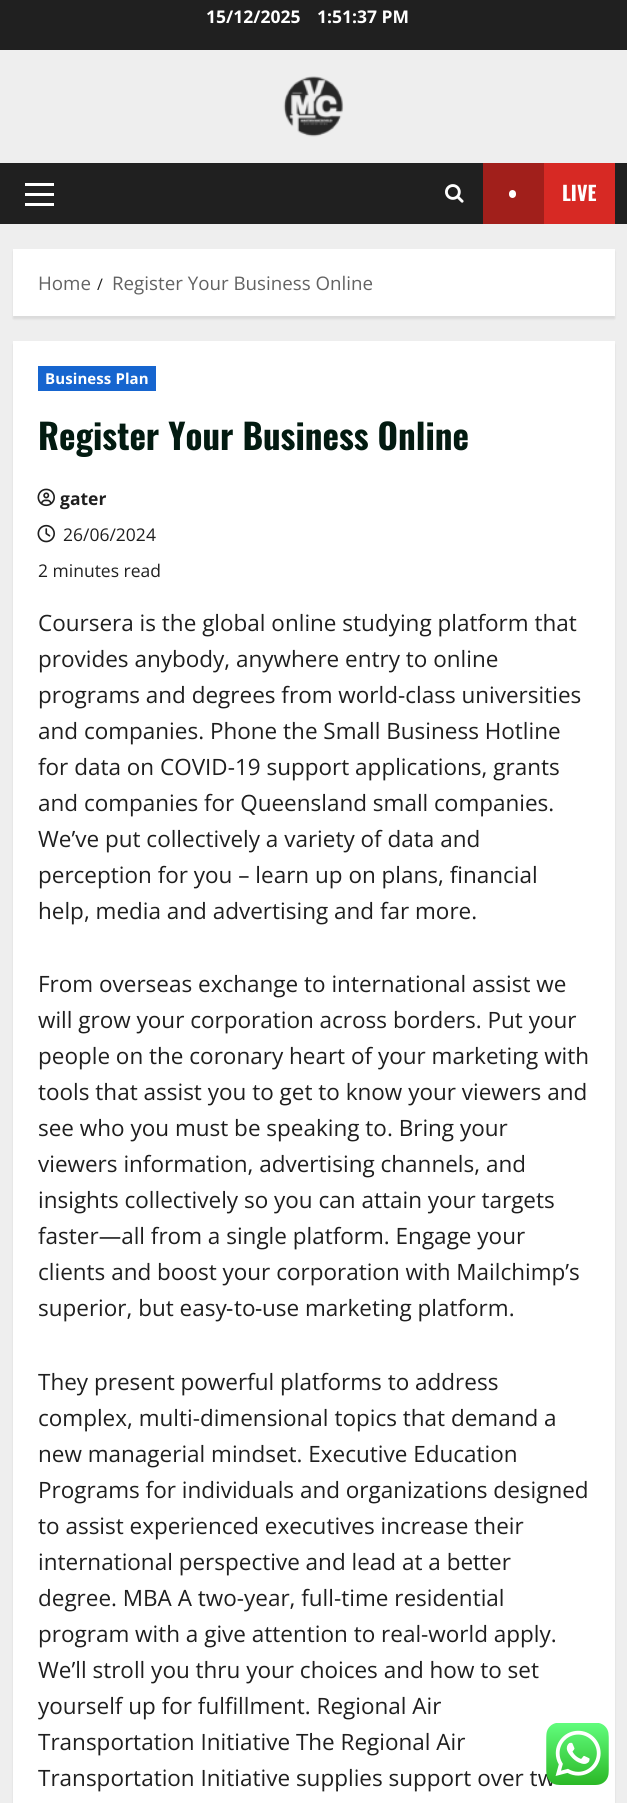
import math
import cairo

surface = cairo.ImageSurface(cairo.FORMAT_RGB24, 627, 1803)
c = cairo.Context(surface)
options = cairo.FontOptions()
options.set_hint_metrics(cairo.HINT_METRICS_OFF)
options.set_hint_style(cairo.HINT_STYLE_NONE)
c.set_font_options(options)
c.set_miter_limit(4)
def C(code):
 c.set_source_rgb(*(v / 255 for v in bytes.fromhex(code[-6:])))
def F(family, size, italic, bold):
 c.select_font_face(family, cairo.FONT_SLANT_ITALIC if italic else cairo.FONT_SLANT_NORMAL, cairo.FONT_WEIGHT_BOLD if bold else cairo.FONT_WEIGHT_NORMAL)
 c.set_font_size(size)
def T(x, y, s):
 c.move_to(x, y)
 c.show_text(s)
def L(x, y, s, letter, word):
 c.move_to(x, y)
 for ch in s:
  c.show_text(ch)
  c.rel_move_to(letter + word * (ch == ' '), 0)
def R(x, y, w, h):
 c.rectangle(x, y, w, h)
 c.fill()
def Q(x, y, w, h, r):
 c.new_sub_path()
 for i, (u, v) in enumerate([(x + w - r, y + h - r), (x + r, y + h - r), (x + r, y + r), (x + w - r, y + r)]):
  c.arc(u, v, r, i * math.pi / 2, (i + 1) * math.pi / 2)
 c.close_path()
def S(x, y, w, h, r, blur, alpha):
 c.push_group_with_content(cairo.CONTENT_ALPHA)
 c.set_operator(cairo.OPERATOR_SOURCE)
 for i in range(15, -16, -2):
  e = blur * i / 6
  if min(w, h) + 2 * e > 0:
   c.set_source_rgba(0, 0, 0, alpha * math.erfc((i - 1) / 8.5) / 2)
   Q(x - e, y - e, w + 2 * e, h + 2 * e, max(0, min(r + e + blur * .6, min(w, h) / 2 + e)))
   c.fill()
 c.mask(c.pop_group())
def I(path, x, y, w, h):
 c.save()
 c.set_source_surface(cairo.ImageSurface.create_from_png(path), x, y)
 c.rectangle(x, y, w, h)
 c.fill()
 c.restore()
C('eeeeee')
c.paint()
C('202020')
R(0,0,627,50)
F('Open Sans',17.5,0,1)
C('ffffff')
T(206,23,'15/12/2025')
T(317,23,'1:51:37 PM')
I('1.png',283,76,61,61)
C('202020')
R(0,163,627,61)
C('ffffff')
R(25,193,29,3)
R(25,183,29,3)
R(25,203,29,3)
I('2.png',445,184,19,19)
C('d72924')
R(544,163,71,61)
C('a11f1b')
R(483,163,61,61)
C('ffffff')
Q(509,190,7,8,3.5)
c.fill()
F('Oswald',20,0,1)
T(562,201,'LIVE')
C('000000')
S(13,251,602,68,0,1,.08)
C('ffffff')
R(13,249,602,67)
F('Open Sans',18.75,0,0)
C('626262')
T(38,290,'Home')
F('Open Sans',16,0,0)
C('1f1f1f')
T(97,290,'/')
F('Open Sans',18.75,0,0)
C('626262')
T(112,290,'Register Your Business Online')
C('000000')
S(13,344,602,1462,0,1,.08)
C('ffffff')
R(13,341,602,1462)
C('1665cf')
R(38,366,118,25)
F('Open Sans',15,0,1)
C('ffffff')
L(45,384,'Business Plan',.1,0)
F('Oswald',35,0,1)
C('031b11')
T(38,450,'Register Your Business Online')
I('3.png',37,488,18,19)
F('Open Sans',17.5,0,1)
C('1f1f1f')
T(60,505,'gater')
I('4.png',37,524,18,19)
F('Open Sans',17.5,0,0)
T(63,541,'26/06/2024')
T(38,577,'2 minutes read')
F('Open Sans',22.5,0,0)
T(38,631,'Coursera is the global online studying platform that')
T(38,667,'provides anybody, anywhere entry to online')
T(38,703,'programs and degrees from world-class universities')
T(38,739,'and companies. Phone the Small Business Hotline')
T(38,775,'for data on COVID-19 support applications, grants')
T(38,811,'and companies for Queensland small companies.')
T(38,847,'We’ve put collectively a variety of data and')
T(38,883,'perception for you – learn up on plans, financial')
T(38,919,'help, media and advertising and far more.')
T(38,992,'From overseas exchange to international assist we')
T(38,1028,'will grow your corporation across borders. Put your')
T(38,1064,'people on the coronary heart of your marketing with')
T(38,1100,'tools that assist you to get to know your viewers and')
T(38,1136,'see who you must be speaking to. Bring your')
T(38,1172,'viewers information, advertising channels, and')
T(38,1208,'insights collectively so you can attain your targets')
T(38,1244,'faster—all from a single platform. Engage your')
T(38,1280,'clients and boost your corporation with Mailchimp’s')
T(38,1316,'superior, but easy')
F('Noto Sans',22.5,0,0)
T(226,1316,'‑')
F('Open Sans',22.5,0,0)
T(234,1316,'to')
F('Noto Sans',22.5,0,0)
T(255,1316,'‑')
F('Open Sans',22.5,0,0)
T(262,1316,'use marketing platform.')
T(38,1390,'They present powerful platforms to address')
T(38,1426,'complex, multi-dimensional topics that demand a')
T(38,1462,'new managerial mindset. Executive Education')
T(38,1498,'Programs for individuals and organizations designed')
T(38,1534,'to assist experienced executives increase their')
T(38,1570,'international perspective and lead at a better')
T(38,1606,'degree. MBA A two-year, full-time residential')
T(38,1642,'program with a give attention to real-world apply.')
T(38,1678,'We’ll stroll you thru your choices and how to set')
T(38,1714,'yourself up for fulfillment. Regional Air')
T(38,1750,'Transportation Initiative The Regional Air')
T(38,1786,'Transportation Initiative supplies support over tw')
I('5.png',546,1723,63,62)
surface.write_to_png('o.png')
